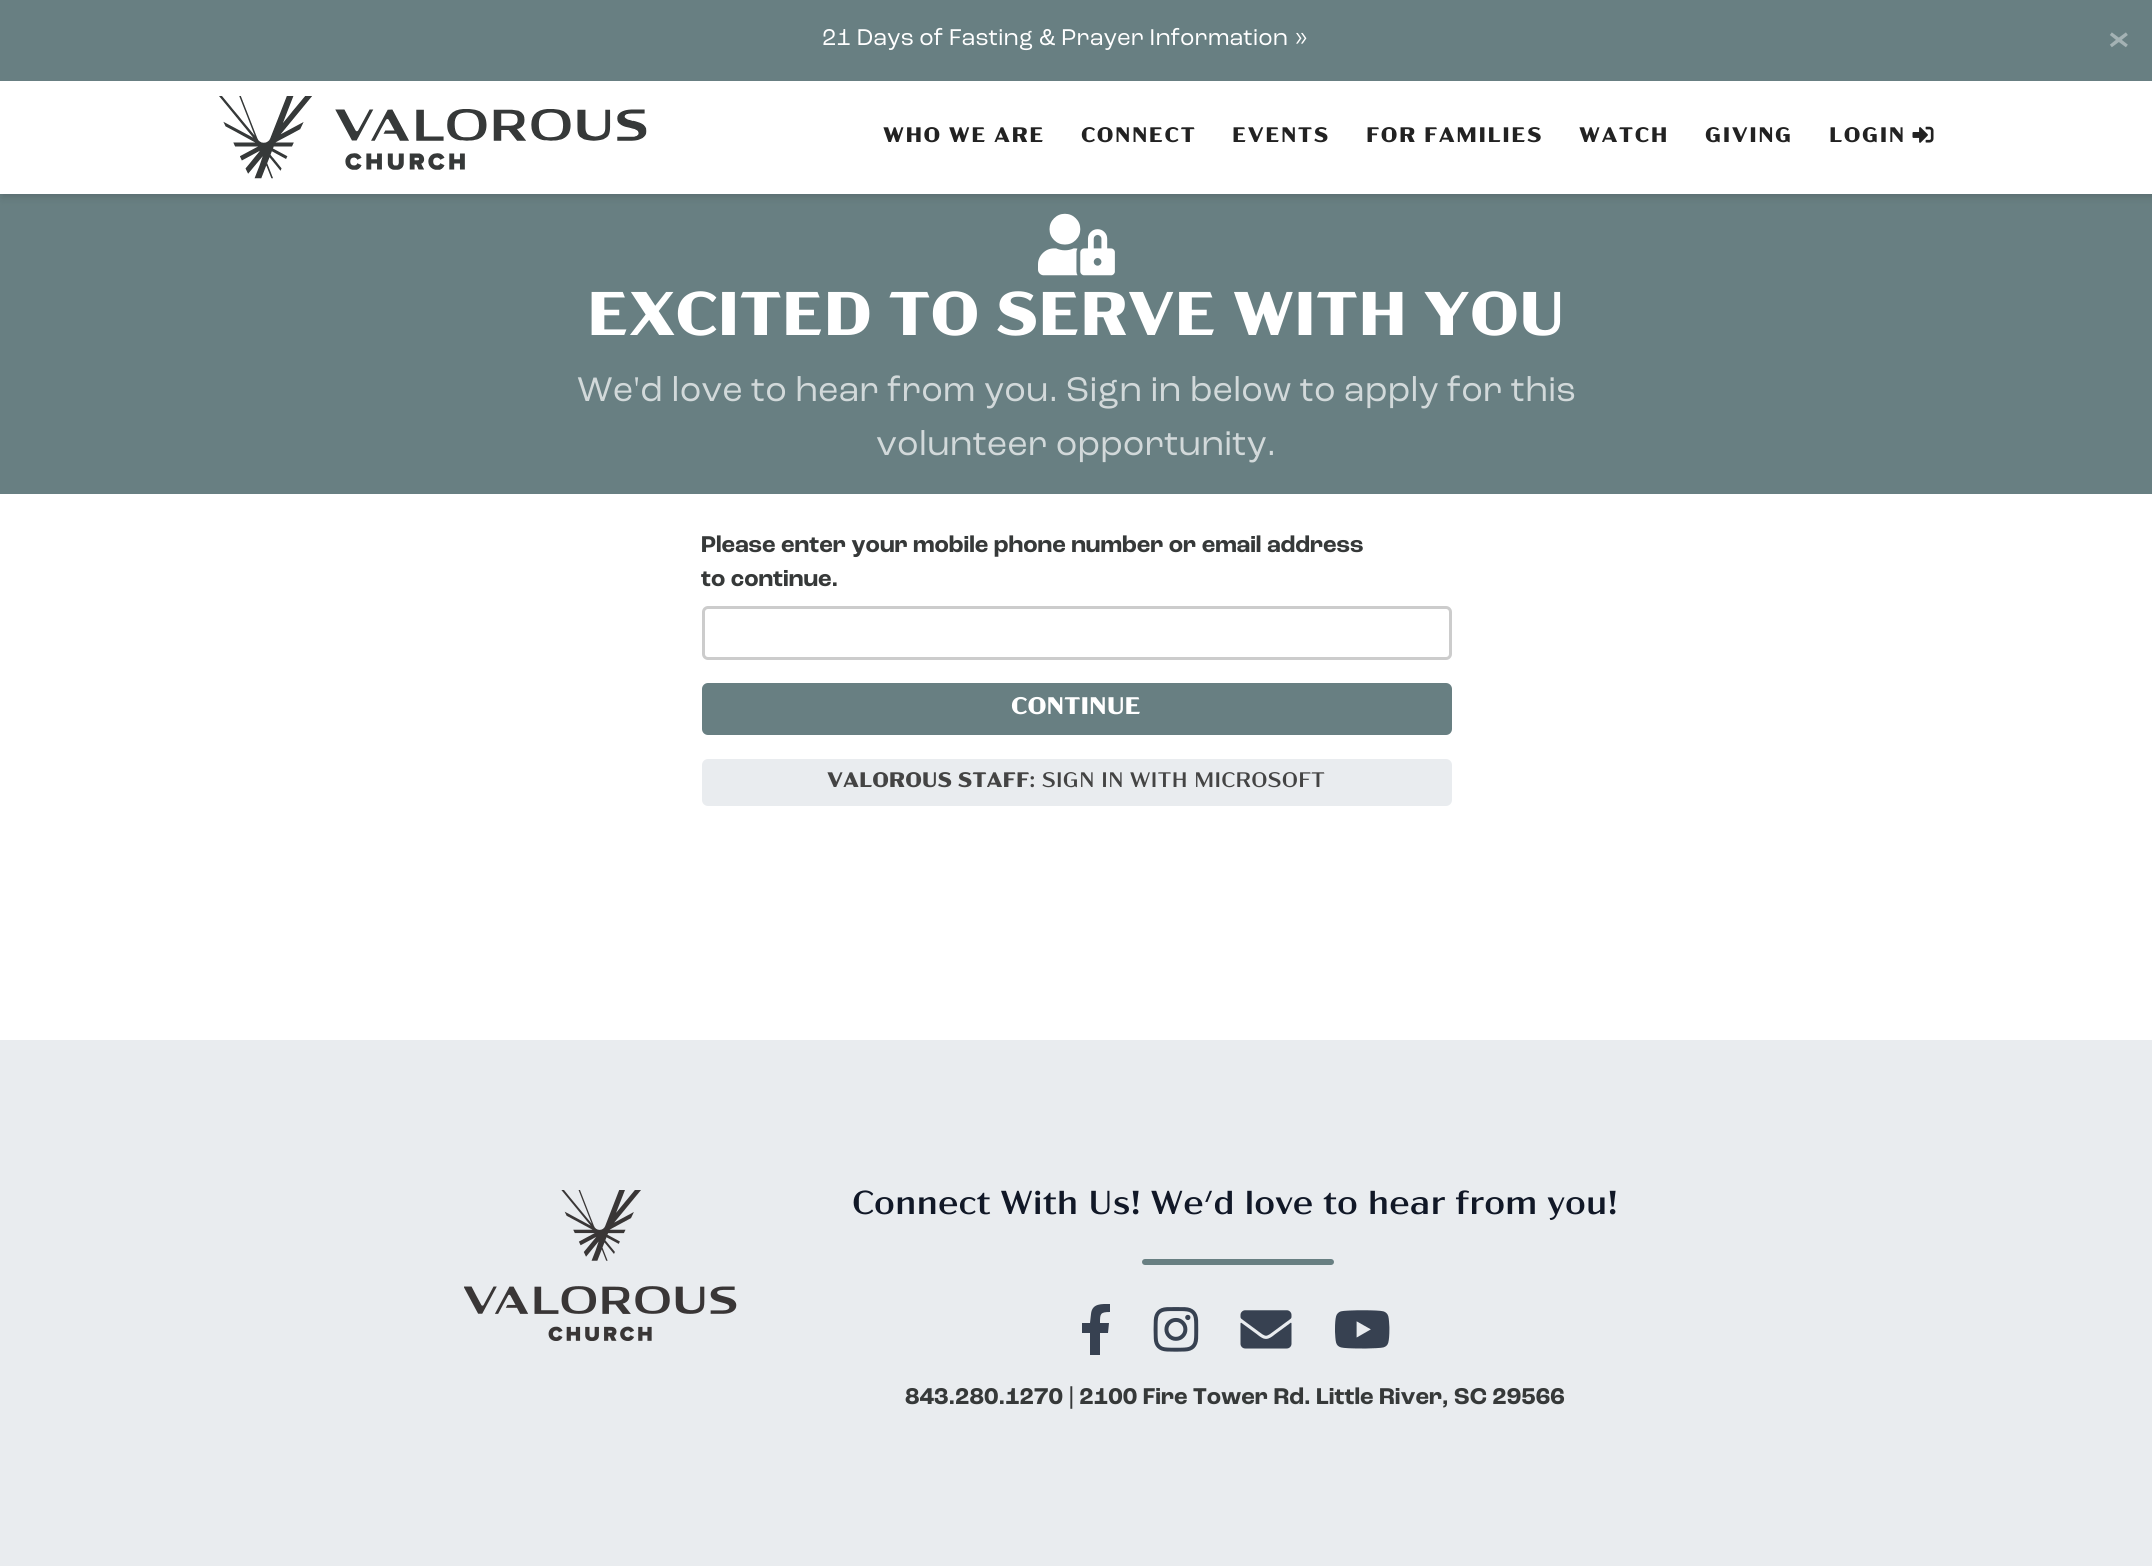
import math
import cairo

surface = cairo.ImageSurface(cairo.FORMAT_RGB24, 2152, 1566)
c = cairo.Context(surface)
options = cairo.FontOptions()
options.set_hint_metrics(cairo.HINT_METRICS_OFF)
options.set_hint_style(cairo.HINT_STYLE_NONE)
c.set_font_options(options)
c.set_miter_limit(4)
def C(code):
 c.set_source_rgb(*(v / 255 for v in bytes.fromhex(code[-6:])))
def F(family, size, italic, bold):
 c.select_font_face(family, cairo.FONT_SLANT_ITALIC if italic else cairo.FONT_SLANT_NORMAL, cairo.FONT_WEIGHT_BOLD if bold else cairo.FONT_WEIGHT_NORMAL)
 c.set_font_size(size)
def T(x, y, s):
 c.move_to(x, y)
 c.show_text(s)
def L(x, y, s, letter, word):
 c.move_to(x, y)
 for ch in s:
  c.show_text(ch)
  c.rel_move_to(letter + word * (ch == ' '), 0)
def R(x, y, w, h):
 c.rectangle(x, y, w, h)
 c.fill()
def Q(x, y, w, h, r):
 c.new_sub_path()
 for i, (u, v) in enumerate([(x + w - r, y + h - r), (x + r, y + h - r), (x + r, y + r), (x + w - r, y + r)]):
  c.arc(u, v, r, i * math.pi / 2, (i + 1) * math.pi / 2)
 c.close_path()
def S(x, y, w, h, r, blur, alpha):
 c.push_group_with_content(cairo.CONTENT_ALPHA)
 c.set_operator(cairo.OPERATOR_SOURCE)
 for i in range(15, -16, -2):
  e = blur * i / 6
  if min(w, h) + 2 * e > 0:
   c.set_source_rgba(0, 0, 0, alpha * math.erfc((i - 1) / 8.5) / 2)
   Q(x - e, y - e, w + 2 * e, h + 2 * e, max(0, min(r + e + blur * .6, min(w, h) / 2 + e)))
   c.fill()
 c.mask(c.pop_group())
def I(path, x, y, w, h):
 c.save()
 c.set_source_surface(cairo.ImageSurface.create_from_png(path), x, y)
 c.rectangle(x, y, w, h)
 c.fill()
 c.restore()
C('ffffff')
c.paint()
C('687f82')
R(0,194,2152,300)
C('000000')
S(2,5,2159,190,0,3,.06)
S(2,8,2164,190,0,4.5,.1)
C('687f82')
R(0,0,2152,81)
F('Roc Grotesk',24,0,0)
C('ffffff')
T(822,45,'21 Days of Fasting & Prayer Information »')
F('Roc Grotesk',36,0,1)
C('a4b2b4')
T(2108,50,'×')
C('ffffff')
R(0,81,2152,113)
I('1.png',219,96,428,83)
F('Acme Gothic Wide',21,0,1)
C('222222')
L(883,142,'WHO WE ARE',1.5,0)
L(1081,142,'CONNECT',1.5,0)
L(1232,142,'EVENTS',1.5,0)
L(1366,142,'FOR FAMILIES',1.5,0)
L(1579,142,'WATCH',1.5,0)
L(1705,142,'GIVING',1.5,0)
L(1829,142,'LOGIN',1.5,0)
I('2.png',1912,126,22,17)
I('3.png',1038,213,77,63)
F('Acme Gothic Wide',61.5,0,1)
C('ffffff')
T(587,335,'EXCITED TO SERVE WITH YOU')
F('Roc Grotesk',36,0,0)
C('d2d9da')
T(577,401,'We\'d love to hear from you. Sign in below to apply for this')
T(876,455,'volunteer opportunity.')
F('Roc Grotesk',24,0,1)
C('363939')
T(701,552,'Please enter your mobile phone number or email address')
T(701,586,'to continue.')
Q(703.5,607.5,747,51,4.5)
C('cccccc')
c.set_line_width(3)
c.stroke()
C('687f82')
Q(702,683,750,52,6)
c.fill()
F('Acme Gothic Wide',24,0,1)
C('ffffff')
T(1011,714,'CONTINUE')
C('e9ecef')
Q(702,759,750,47,6)
c.fill()
F('Acme Gothic Wide',21,0,1)
C('444444')
T(827,787,'VALOROUS STAFF')
F('Acme Gothic Wide',21,0,0)
T(1029,787,': SIGN IN WITH MICROSOFT')
C('e9ecef')
R(0,1040,2152,526)
I('4.png',464,1190,273,151)
F('Acme Gothic Wide',33.15,0,0)
C('111827')
T(852,1214,'Connect With Us! We\'d love to hear from you!')
C('687f82')
Q(1142,1259,192,6,3)
c.fill()
C('374151')
c.new_path()
c.move_to(1108,1333)
c.line_to(1100,1333)
c.line_to(1100,1355)
c.line_to(1090,1355)
c.line_to(1090,1333)
c.line_to(1082,1333)
c.line_to(1082,1323)
c.line_to(1090,1323)
c.line_to(1091,1314)
c.curve_to(1092,1303,1102,1304,1110,1304)
c.line_to(1110,1312)
c.curve_to(1100,1312,1100,1314,1100,1323)
c.line_to(1109,1323)
c.close_path()
c.fill()
I('5.png',1153,1307,46,45)
I('6.png',1240,1310,52,39)
I('7.png',1335,1310,55,39)
F('Roc Grotesk',24,0,1)
C('363939')
T(905,1404,'843.280.1270 | 2100 Fire Tower Rd. Little River, SC 29566')
surface.write_to_png('o.png')
